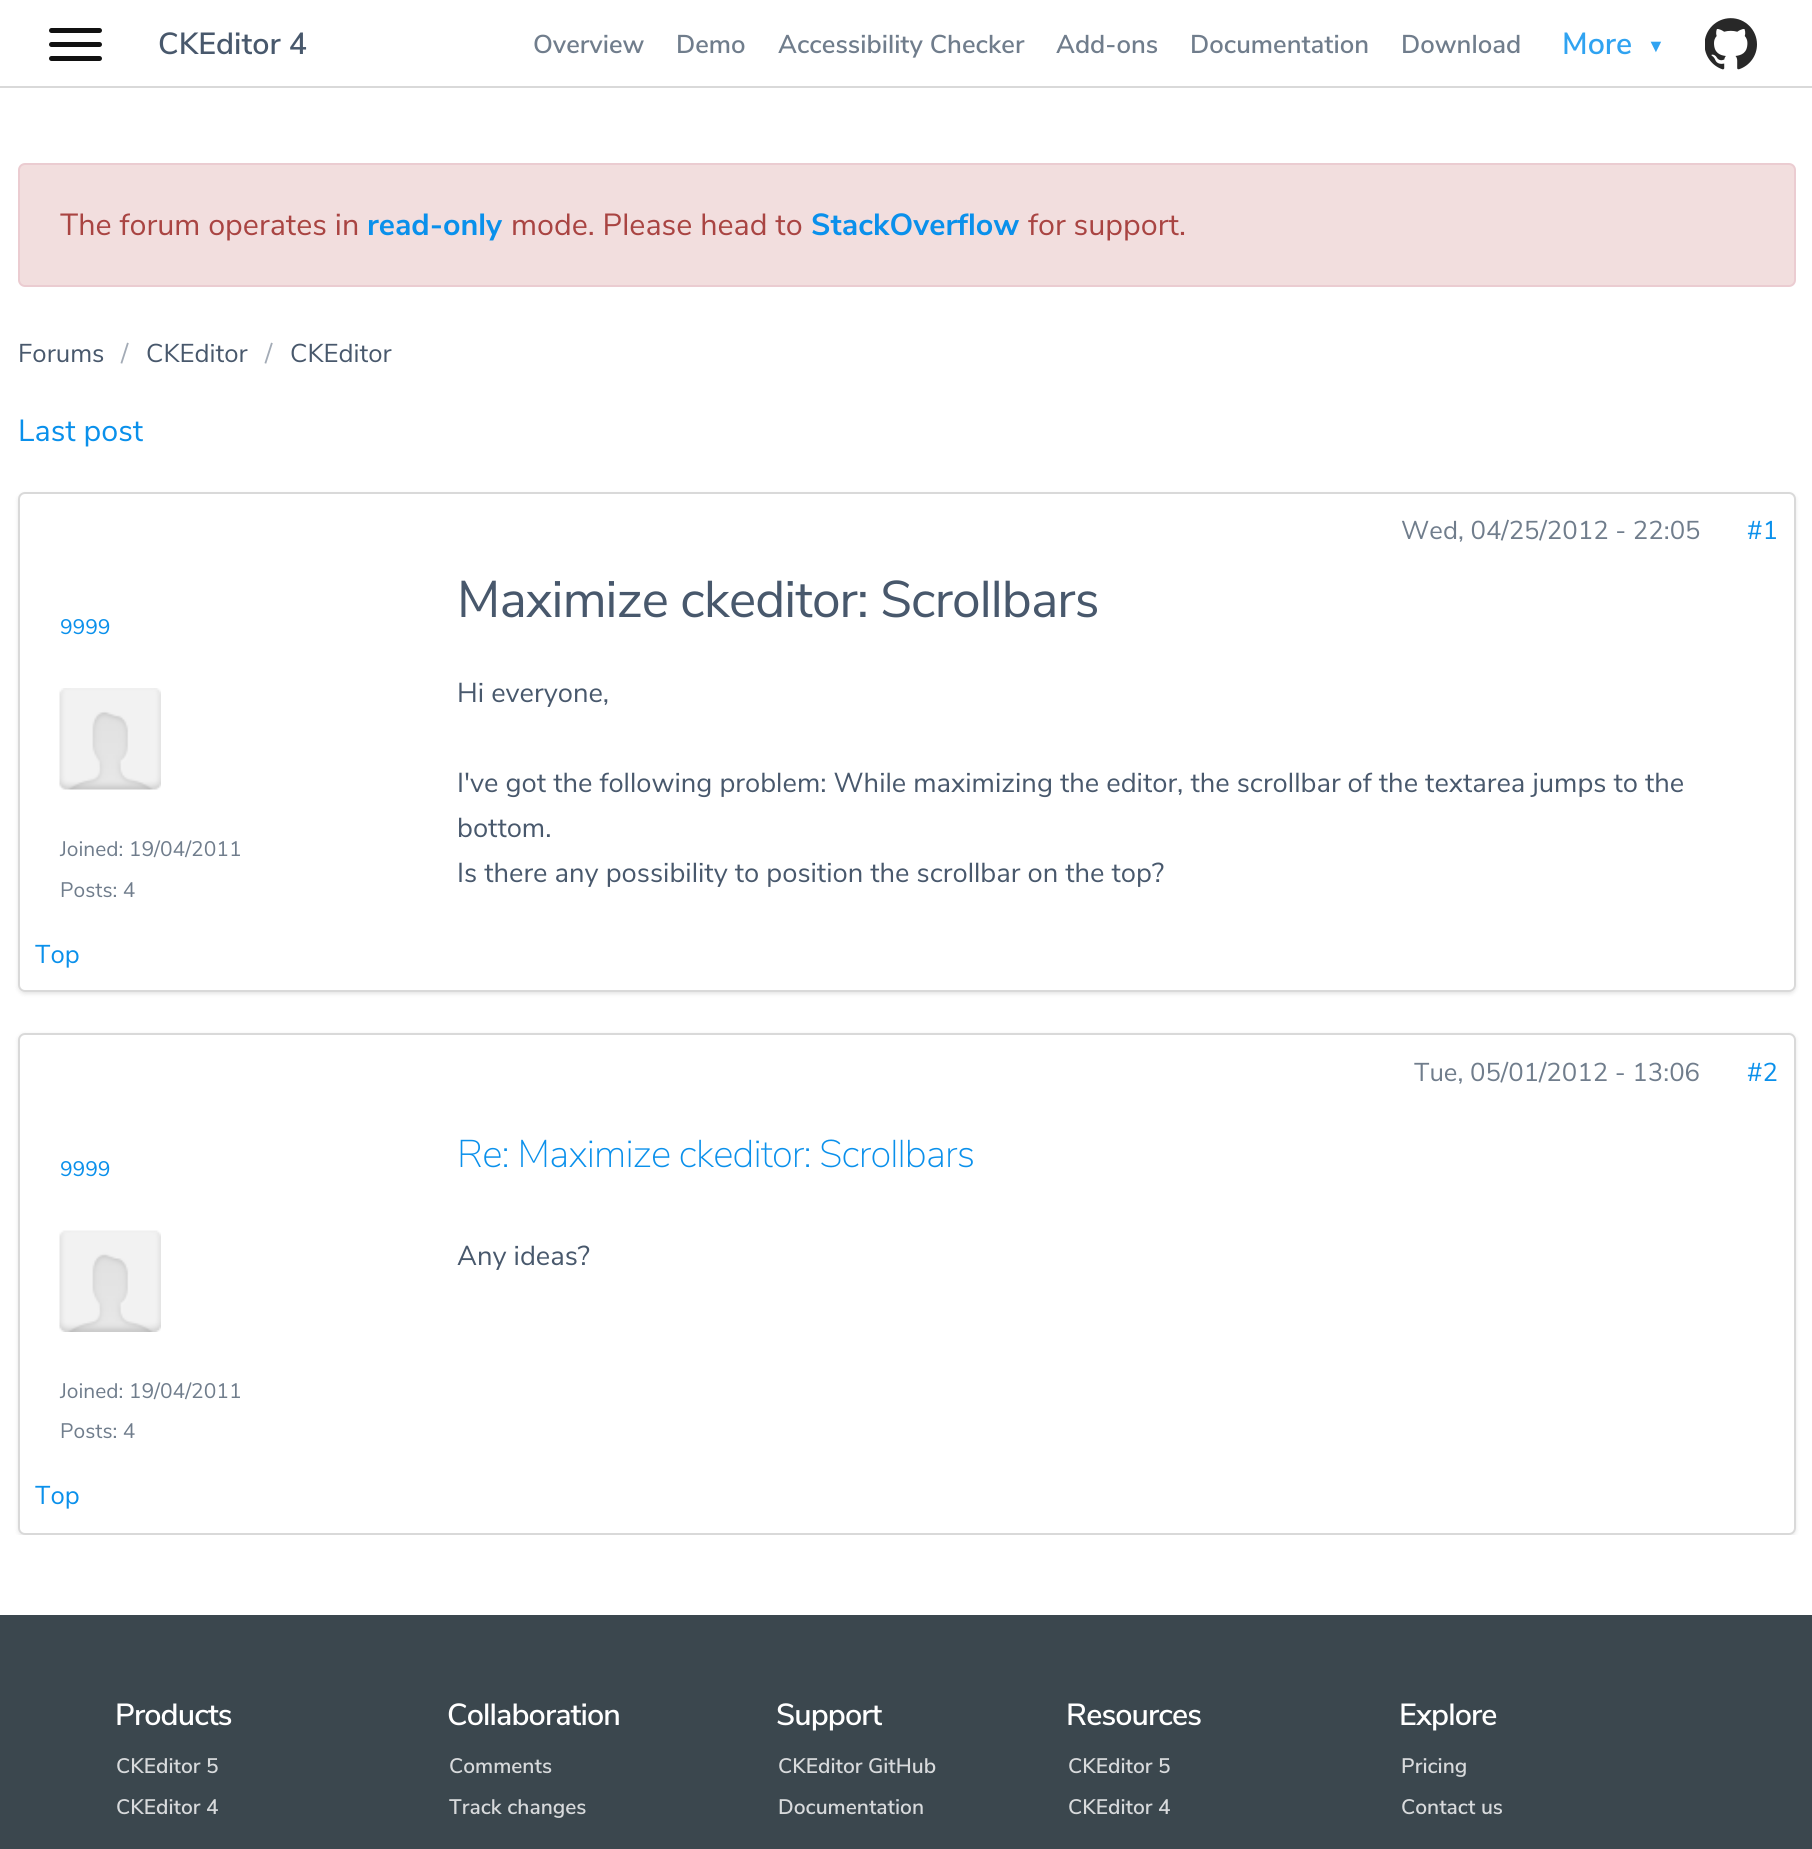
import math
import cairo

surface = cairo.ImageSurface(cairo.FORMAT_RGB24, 1812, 1849)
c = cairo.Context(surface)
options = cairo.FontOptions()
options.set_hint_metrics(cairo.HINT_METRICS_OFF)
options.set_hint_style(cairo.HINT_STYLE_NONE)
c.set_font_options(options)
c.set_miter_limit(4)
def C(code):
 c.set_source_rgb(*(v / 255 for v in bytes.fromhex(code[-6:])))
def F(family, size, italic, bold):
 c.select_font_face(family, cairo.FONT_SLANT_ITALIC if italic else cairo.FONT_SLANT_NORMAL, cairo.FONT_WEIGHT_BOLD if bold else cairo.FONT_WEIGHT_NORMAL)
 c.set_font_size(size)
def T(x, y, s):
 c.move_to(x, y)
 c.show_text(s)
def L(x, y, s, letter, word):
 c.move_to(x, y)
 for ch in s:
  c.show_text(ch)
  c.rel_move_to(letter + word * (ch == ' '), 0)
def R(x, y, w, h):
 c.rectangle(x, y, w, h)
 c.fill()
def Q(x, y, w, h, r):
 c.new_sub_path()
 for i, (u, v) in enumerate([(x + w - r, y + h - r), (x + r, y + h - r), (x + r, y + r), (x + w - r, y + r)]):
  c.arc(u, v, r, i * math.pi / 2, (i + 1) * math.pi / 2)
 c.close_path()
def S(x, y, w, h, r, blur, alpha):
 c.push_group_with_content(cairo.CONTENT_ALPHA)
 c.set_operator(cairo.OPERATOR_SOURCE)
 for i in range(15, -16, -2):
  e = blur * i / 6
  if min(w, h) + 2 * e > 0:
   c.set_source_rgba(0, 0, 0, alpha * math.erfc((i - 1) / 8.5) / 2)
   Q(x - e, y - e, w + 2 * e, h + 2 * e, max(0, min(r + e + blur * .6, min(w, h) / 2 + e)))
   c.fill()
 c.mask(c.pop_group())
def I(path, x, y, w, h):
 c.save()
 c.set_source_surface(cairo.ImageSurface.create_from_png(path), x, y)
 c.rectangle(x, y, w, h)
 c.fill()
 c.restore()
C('ffffff')
c.paint()
C('111111')
Q(49,28,53,5,2.5)
c.fill()
Q(49,42,53,5,2.5)
c.fill()
Q(49,56,53,5,2.5)
c.fill()
C('d9d9d9')
R(0,86,1812,2)
F('Nunito Sans SemiBold',30.5,0,0)
C('48586c')
T(158,54,'CKEditor 4')
F('Nunito Sans SemiBold',25.75,0,0)
C('707d8c')
T(533,53,'Overview')
T(676,53,'Demo')
T(778,53,'Accessibility Checker')
T(1056,53,'Add-ons')
T(1190,53,'Documentation')
T(1401,53,'Download')
F('Nunito Sans SemiBold',30.5,0,0)
C('30a3f1')
T(1562,54,'More')
F('Liberation Sans',18,0,1)
T(1647,52,'▼')
I('1.png',1705,18,52,52)
C('f2dede')
Q(19,164,1776,122,6)
c.fill_preserve()
C('ebccd1')
c.stroke()
F('Nunito Sans',30.5,0,0)
C('a94442')
T(60,235,'The forum operates in')
F('Nunito Sans',30.5,0,1)
C('0a90eb')
T(367,235,'read-only')
F('Nunito Sans',30.5,0,0)
C('a94442')
T(511,235,'mode. Please head to')
F('Nunito Sans',30.5,0,1)
C('0a90eb')
T(811,235,'StackOverflow')
F('Nunito Sans',30.5,0,0)
C('a94442')
T(1028,235,'for support.')
F('Nunito Sans',25.75,0,0)
C('48586c')
T(18,362,'Forums')
C('a3abb6')
T(121,362,'/')
C('48586c')
T(146,362,'CKEditor')
C('a3abb6')
T(265,362,'/')
C('48586c')
T(290,362,'CKEditor')
F('Nunito Sans',30.5,0,0)
C('0a90eb')
T(18,441,'Last post')
c.save()
c.set_fill_rule(cairo.FILL_RULE_EVEN_ODD)
c.new_path()
c.move_to(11,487)
c.line_to(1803,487)
c.line_to(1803,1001)
c.line_to(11,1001)
c.close_path()
c.move_to(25,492)
c.line_to(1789,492)
c.curve_to(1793,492,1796,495,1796,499)
c.line_to(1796,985)
c.curve_to(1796,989,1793,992,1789,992)
c.line_to(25,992)
c.curve_to(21,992,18,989,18,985)
c.line_to(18,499)
c.curve_to(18,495,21,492,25,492)
c.close_path()
c.clip()
C('000000')
S(18,494,1778,500,7,2,.1)
c.restore()
Q(19,493,1776,498,6)
c.set_source_rgba(0,0,0,0.15)
c.stroke()
F('Nunito Sans',25.75,0,0)
C('707d8c')
T(1401,539,'Wed, 04/25/2012 - 22:05')
C('0a90eb')
T(1747,539,'#1')
F('Nunito Sans',21,0,0)
T(60,634,'9999')
I('2.png',59,688,102,102)
C('707d8c')
T(60,856,'Joined: 19/04/2011')
T(60,897,'Posts: 4')
F('Nunito Sans',51.5,0,0)
C('48586c')
L(457,617,'Maximize ckeditor: Scrollbars',-.9,0)
F('Nunito Sans',27.35,0,0)
T(457,702,'Hi everyone,')
T(457,792,'I\'ve got the following problem: While maximizing the editor, the scrollbar of the textarea jumps to the')
T(457,837,'bottom.')
T(457,882,'Is there any possibility to position the scrollbar on the top?')
F('Nunito Sans',25.75,0,0)
C('0a90eb')
T(35,963,'Top')
c.save()
c.rectangle(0,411,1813,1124)
c.clip()
c.set_fill_rule(cairo.FILL_RULE_EVEN_ODD)
c.new_path()
c.move_to(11,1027)
c.line_to(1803,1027)
c.line_to(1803,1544)
c.line_to(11,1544)
c.close_path()
c.move_to(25,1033)
c.line_to(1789,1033)
c.curve_to(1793,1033,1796,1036,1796,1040)
c.line_to(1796,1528)
c.curve_to(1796,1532,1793,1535,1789,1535)
c.line_to(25,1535)
c.curve_to(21,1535,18,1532,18,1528)
c.line_to(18,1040)
c.curve_to(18,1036,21,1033,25,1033)
c.close_path()
c.clip()
C('000000')
S(18,1034,1778,503,7,2,.1)
c.restore()
Q(19,1034,1776,500,6)
c.set_source_rgba(0,0,0,0.15)
c.stroke()
C('707d8c')
T(1414,1081,'Tue, 05/01/2012 - 13:06')
C('0a90eb')
T(1747,1081,'#2')
F('Nunito Sans',21,0,0)
T(60,1176,'9999')
I('3.png',59,1230,102,102)
C('707d8c')
T(60,1398,'Joined: 19/04/2011')
T(60,1438,'Posts: 4')
F('Nunito Sans ExtraLight',38.6,0,0)
C('0a90eb')
L(457,1167,'Re: Maximize ckeditor: Scrollbars',-.9,0)
F('Nunito Sans',27.35,0,0)
C('48586c')
T(457,1265,'Any ideas?')
F('Nunito Sans',25.75,0,0)
C('0a90eb')
T(35,1504,'Top')
C('3b474e')
R(0,1615,1812,234)
F('Nunito Sans SemiBold',30.5,0,0)
C('ffffff')
L(115,1725,'Products',-.9,0)
F('Nunito Sans SemiBold',21,0,0)
C('d8dadc')
T(116,1773,'CKEditor 5')
T(116,1814,'CKEditor 4')
F('Nunito Sans SemiBold',30.5,0,0)
C('ffffff')
L(447,1725,'Collaboration',-.9,0)
F('Nunito Sans SemiBold',21,0,0)
C('d8dadc')
T(449,1773,'Comments')
T(449,1814,'Track changes')
F('Nunito Sans SemiBold',30.5,0,0)
C('ffffff')
L(776,1725,'Support',-.9,0)
F('Nunito Sans SemiBold',21,0,0)
C('d8dadc')
T(778,1773,'CKEditor GitHub')
T(778,1814,'Documentation')
F('Nunito Sans SemiBold',30.5,0,0)
C('ffffff')
L(1066,1725,'Resources',-.9,0)
F('Nunito Sans SemiBold',21,0,0)
C('d8dadc')
T(1068,1773,'CKEditor 5')
T(1068,1814,'CKEditor 4')
F('Nunito Sans SemiBold',30.5,0,0)
C('ffffff')
L(1399,1725,'Explore',-.9,0)
F('Nunito Sans SemiBold',21,0,0)
C('d8dadc')
T(1401,1773,'Pricing')
T(1401,1814,'Contact us')
surface.write_to_png('o.png')
